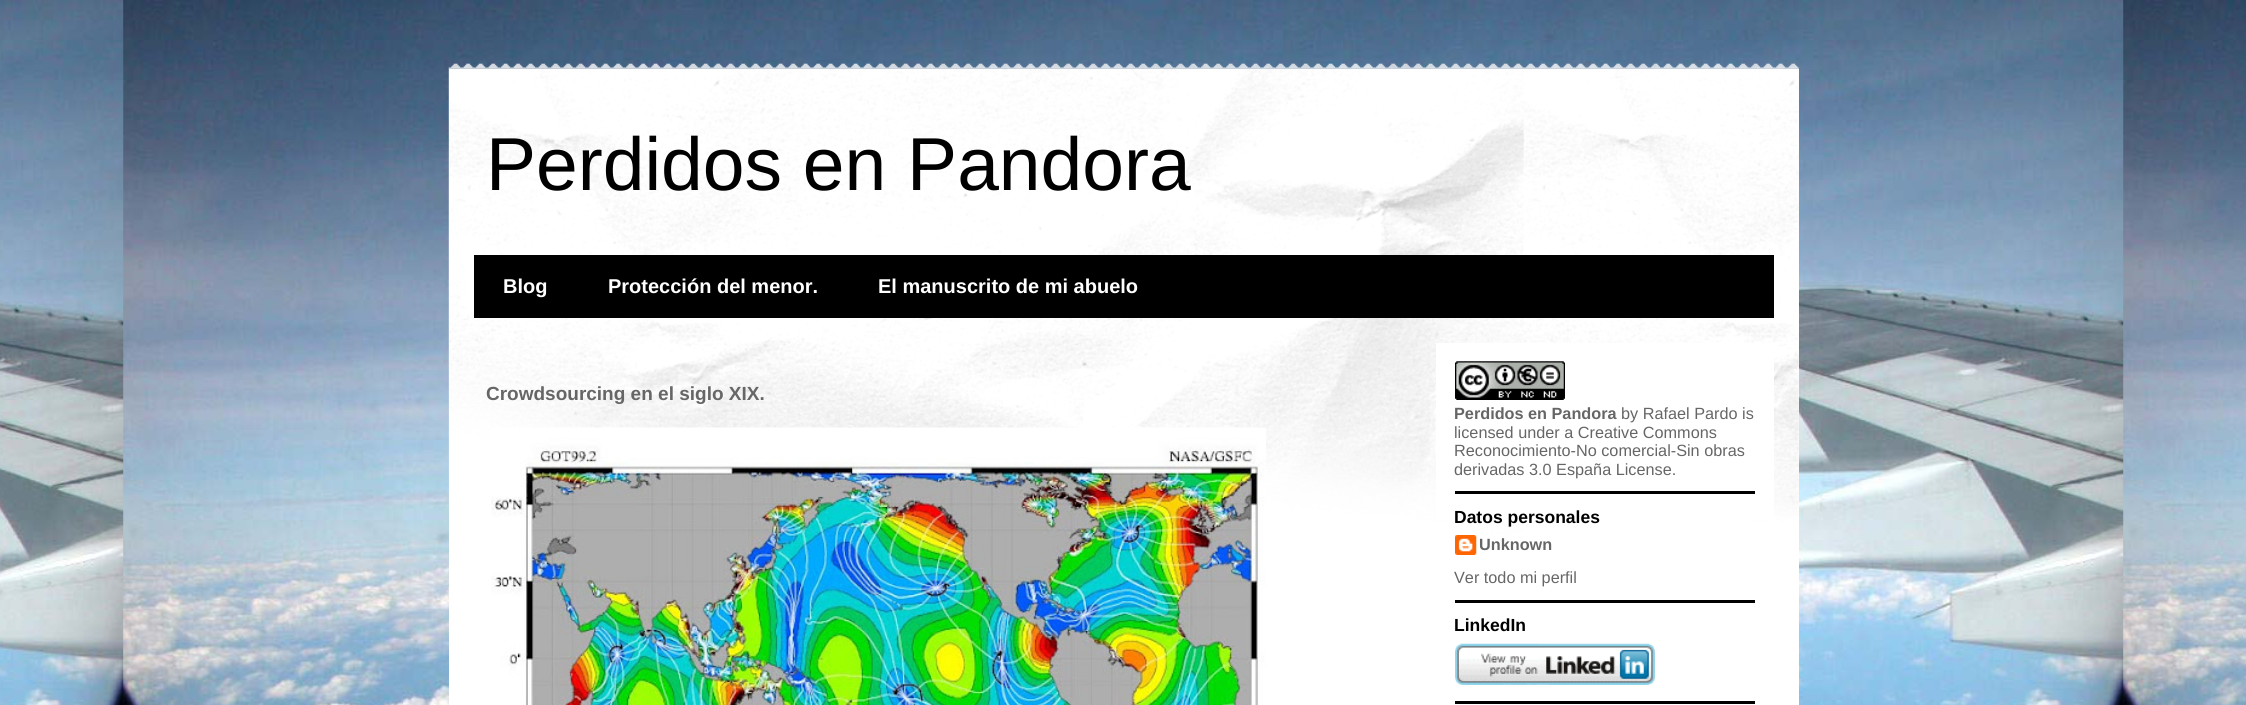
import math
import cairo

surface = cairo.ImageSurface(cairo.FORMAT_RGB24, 2246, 705)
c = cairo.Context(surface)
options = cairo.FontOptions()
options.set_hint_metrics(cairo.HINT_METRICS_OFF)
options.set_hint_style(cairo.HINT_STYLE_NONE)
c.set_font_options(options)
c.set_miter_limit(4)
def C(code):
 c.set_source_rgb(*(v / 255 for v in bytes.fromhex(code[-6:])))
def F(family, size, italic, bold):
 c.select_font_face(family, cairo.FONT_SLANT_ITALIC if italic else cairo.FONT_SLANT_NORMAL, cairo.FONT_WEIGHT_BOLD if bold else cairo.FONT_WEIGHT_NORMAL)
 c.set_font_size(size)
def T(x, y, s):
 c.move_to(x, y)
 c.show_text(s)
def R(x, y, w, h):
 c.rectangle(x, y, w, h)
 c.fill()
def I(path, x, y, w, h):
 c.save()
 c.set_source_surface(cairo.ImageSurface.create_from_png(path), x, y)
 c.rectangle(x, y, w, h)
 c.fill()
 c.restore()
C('ffffff')
c.paint()
I('1.png',0,0,2246,705)
I('2.png',448,63,1351,6)
C('ffffff')
R(449,69,1350,636)
I('3.png',448,68,1351,484)
F('Liberation Sans',75,0,0)
C('000000')
T(486,190,'Perdidos en Pandora')
R(474,255,1300,63)
F('Liberation Sans',20,0,1)
C('ffffff')
T(503,293,'Blog')
T(608,293,'Protección del menor.')
T(878,293,'El manuscrito de mi abuelo')
R(1436,343,338,177)
F('Liberation Sans',19,0,1)
C('666666')
T(486,400,'Crowdsourcing en el siglo XIX.')
I('4.png',491,427,775,278)
C('000000')
R(1455,491,300,3)
I('5.png',1455,361,110,39)
F('Liberation Sans',16.25,0,1)
C('666666')
T(1454,419,'Perdidos en Pandora')
F('Liberation Sans',16.25,0,0)
T(1621,419,'by Rafael Pardo is')
T(1454,438,'licensed under a Creative Commons')
T(1454,456,'Reconocimiento-No comercial-Sin obras')
T(1454,475,'derivadas 3.0 España License.')
C('000000')
R(1455,600,300,3)
F('Liberation Sans',17.5,0,1)
T(1454,523,'Datos personales')
I('6.png',1455,535,22,20)
F('Liberation Sans',16.25,0,1)
C('666666')
T(1479,550,'Unknown')
F('Liberation Sans',16.25,0,0)
T(1454,583,'Ver todo mi perfil')
C('000000')
R(1455,701,300,3)
F('Liberation Sans',17.5,0,1)
T(1454,631,'LinkedIn')
I('7.png',1455,643,200,42)
surface.write_to_png('o.png')
